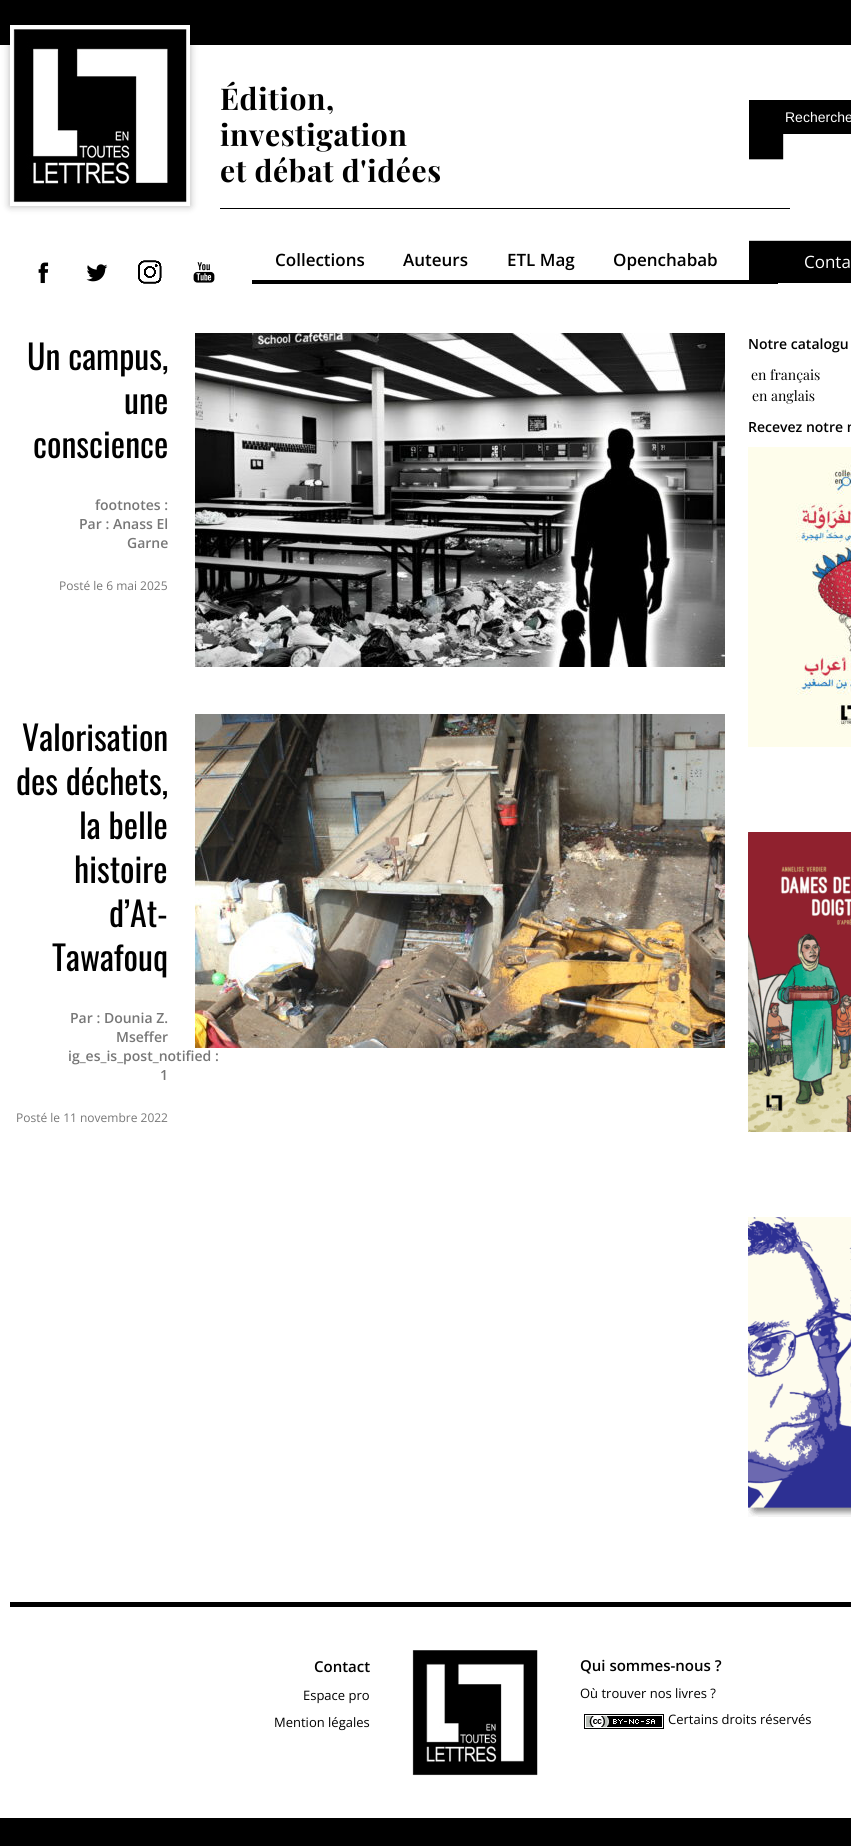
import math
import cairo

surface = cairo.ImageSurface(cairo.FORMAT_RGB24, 851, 1846)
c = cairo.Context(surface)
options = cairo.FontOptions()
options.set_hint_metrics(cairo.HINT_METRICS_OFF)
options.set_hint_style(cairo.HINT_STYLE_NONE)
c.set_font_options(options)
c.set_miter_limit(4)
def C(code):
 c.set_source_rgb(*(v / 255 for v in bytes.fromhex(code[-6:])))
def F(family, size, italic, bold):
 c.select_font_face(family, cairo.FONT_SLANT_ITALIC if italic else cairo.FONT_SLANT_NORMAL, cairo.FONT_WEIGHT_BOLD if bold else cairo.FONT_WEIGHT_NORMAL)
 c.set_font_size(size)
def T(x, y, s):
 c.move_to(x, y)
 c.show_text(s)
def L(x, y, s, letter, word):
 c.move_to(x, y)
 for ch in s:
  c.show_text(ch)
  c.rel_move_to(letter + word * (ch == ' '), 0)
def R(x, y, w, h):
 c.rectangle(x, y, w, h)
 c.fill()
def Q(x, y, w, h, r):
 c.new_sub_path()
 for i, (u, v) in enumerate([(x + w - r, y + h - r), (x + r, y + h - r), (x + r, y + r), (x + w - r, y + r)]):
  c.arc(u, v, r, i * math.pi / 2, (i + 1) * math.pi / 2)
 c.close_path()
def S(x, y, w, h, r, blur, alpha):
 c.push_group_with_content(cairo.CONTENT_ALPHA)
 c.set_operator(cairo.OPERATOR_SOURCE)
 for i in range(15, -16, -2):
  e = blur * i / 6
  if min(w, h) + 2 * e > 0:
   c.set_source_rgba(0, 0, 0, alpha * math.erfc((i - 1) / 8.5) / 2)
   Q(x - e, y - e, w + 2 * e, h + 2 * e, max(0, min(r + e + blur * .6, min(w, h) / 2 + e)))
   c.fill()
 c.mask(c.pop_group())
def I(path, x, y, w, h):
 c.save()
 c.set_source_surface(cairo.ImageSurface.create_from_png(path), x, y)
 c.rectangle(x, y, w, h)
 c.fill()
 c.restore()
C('ffffff')
c.paint()
C('000000')
R(0,0,851,45)
R(0,1818,851,28)
I('1.png',749,100,102,183)
c.save()
c.set_fill_rule(cairo.FILL_RULE_EVEN_ODD)
c.new_path()
c.move_to(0,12)
c.line_to(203,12)
c.line_to(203,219)
c.line_to(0,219)
c.close_path()
c.move_to(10,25)
c.line_to(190,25)
c.line_to(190,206)
c.line_to(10,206)
c.close_path()
c.clip()
C('000000')
S(10,25,180,181,0,4,.3)
c.restore()
I('2.png',10,25,180,178)
R(220,208,570,1)
F('Playfair Display',30,0,1)
L(220,110,'Édition,',.6,0)
L(220,146,'investigation',.6,0)
L(220,182,'et débat d\'idées',.6,0)
R(783,133,68,1)
F('Liberation Sans',14,0,0)
C('ffffff')
T(785,122,'Recherche')
I('3.png',38,262,11,22)
I('4.png',86,264,22,18)
I('5.png',138,260,24,24)
I('6.png',193,262,22,21)
C('000000')
R(252,280,526,4)
F('Open Sans SemiBold',17,0,0)
T(275,266,'Collections')
T(403,266,'Auteurs')
T(507,266,'ETL Mag')
T(613,266,'Openchabab')
F('Open Sans',17,0,0)
C('ffffff')
T(804,268,'Conta')
F('Oswald',34,0,0)
C('000000')
T(27,370,'Un campus,')
T(124,414,'une')
T(33,458,'conscience')
F('Open Sans SemiBold',14,0,0)
C('777777')
T(95,510,'footnotes :')
T(79,529,'Par : Anass El')
T(127,548,'Garne')
F('Open Sans',12,0,0)
T(59,590,'Posté le 6 mai 2025')
I('7.png',195,333,530,334)
F('Oswald',34,0,0)
C('000000')
T(22,751,'Valorisation')
T(16,795,'des déchets,')
T(79,839,'la belle')
T(74,883,'histoire')
T(109,927,'d’At-')
T(52,971,'Tawafouq')
F('Open Sans SemiBold',14,0,0)
C('777777')
T(70,1023,'Par : Dounia Z.')
T(116,1042,'Mseffer')
T(68,1061,'ig_es_is_post_notified :')
T(160,1080,'1')
F('Open Sans',12,0,0)
T(16,1122,'Posté le 11 novembre 2022')
I('8.png',195,714,530,334)
F('Open Sans SemiBold',14,0,0)
C('000000')
T(748,349,'Notre catalogu')
F('Playfair Display',14,0,0)
T(751,380,'en français')
T(752,401,'en anglais')
F('Open Sans SemiBold',14,0,0)
T(748,432,'Recevez notre n')
I('9.png',748,447,103,300)
I('10.png',748,832,103,300)
I('11.png',748,1217,103,300)
R(10,1602,841,5)
F('Open Sans SemiBold',15,0,0)
T(314,1672,'Contact')
F('Open Sans',13,0,0)
T(303,1700,'Espace pro')
T(274,1727,'Mention légales')
I('12.png',412,1650,126,126)
F('Open Sans SemiBold',15,0,0)
T(580,1671,'Qui sommes-nous ?')
F('Open Sans',13,0,0)
T(580,1698,'Où trouver nos livres ?')
I('13.png',584,1714,80,15)
T(668,1724,'Certains droits réservés')
surface.write_to_png('o.png')
